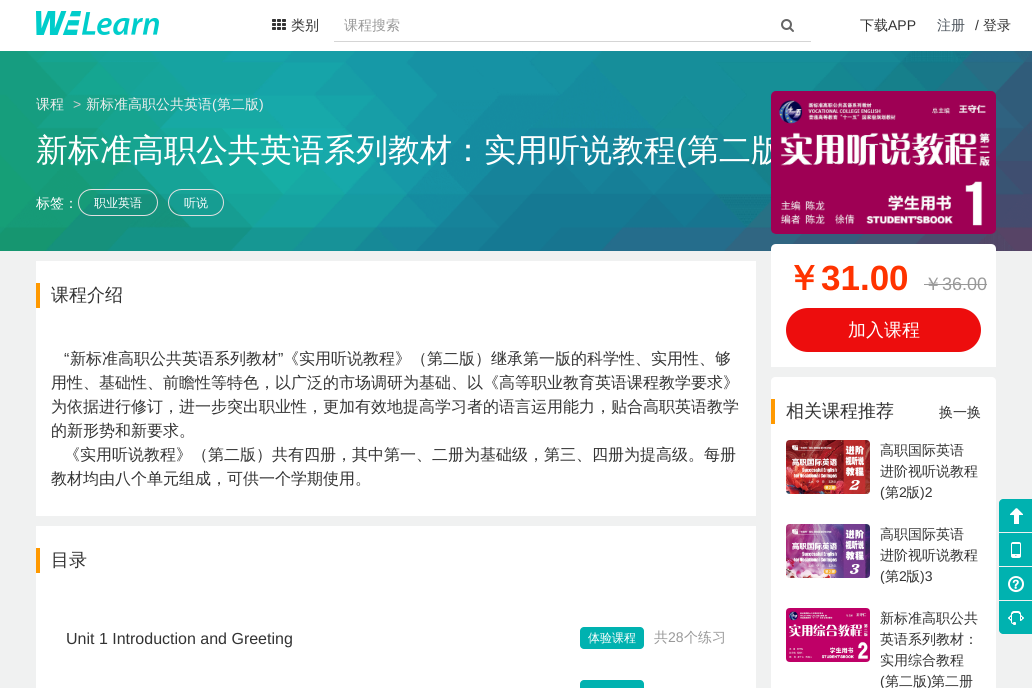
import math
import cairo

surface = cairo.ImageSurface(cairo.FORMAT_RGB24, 1032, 688)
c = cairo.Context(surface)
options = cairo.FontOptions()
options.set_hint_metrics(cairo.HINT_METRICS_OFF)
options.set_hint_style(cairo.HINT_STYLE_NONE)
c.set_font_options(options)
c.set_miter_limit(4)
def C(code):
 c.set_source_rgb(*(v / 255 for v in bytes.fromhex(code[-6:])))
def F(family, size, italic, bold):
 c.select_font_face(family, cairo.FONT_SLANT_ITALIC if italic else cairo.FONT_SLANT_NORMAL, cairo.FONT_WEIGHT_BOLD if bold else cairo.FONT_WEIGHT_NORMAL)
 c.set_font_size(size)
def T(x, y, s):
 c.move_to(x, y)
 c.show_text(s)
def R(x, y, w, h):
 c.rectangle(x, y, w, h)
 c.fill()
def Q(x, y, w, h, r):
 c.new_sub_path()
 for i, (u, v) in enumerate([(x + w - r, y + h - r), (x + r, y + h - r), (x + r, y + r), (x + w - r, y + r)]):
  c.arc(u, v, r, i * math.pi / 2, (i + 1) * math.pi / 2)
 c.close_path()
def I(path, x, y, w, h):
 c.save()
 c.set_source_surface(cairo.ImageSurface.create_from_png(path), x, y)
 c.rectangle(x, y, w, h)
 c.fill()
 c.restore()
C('f0f1f1')
c.paint()
C('ffffff')
R(0,0,1032,51)
I('1.png',36,11,123,24)
I('2.png',272,19,14,11)
F('WenQuanYi Zen Hei Medium',14,0,0)
C('333333')
T(291,30,'类别')
C('999999')
T(344,30,'课程搜索')
C('d5d5d5')
R(334,41,477,1)
I('3.png',781,19,13,13)
C('333333')
T(860,30,'下载')
F('Liberation Sans',14,0,0)
T(888,30,'APP')
F('WenQuanYi Zen Hei Medium',14,0,0)
C('4d555d')
T(937,30,'注册')
F('Liberation Sans',14,0,0)
C('333333')
T(975,30,'/')
F('WenQuanYi Zen Hei Medium',14,0,0)
T(983,30,'登录')
I('4.png',0,51,1032,200)
C('eeeeee')
T(36,109,'课程')
F('Liberation Sans',14,0,0)
C('cccccc')
T(73,109,'>')
F('WenQuanYi Zen Hei Medium',14,0,0)
C('eeeeee')
T(86,109,'新标准高职公共英语')
F('Liberation Sans',14,0,0)
T(212,109,'(')
F('WenQuanYi Zen Hei Medium',14,0,0)
T(217,109,'第二版')
F('Liberation Sans',14,0,0)
T(259,109,')')
F('WenQuanYi Zen Hei Medium',32,0,0)
C('ffffff')
T(36,161,'新标准高职公共英语系列教材：实用听说教程')
F('Liberation Sans',32,0,0)
T(676,161,'(')
F('WenQuanYi Zen Hei Medium',32,0,0)
T(687,161,'第二版')
F('WenQuanYi Zen Hei Medium',14,0,0)
T(36,208,'标签：')
Q(78.5,189.5,79,26,13)
C('e0e0e0')
c.set_line_width(1)
c.stroke()
F('WenQuanYi Zen Hei Medium',12,0,0)
C('ffffff')
T(94,207,'职业英语')
Q(168.5,189.5,55,26,13)
C('e0e0e0')
c.stroke()
C('ffffff')
T(184,207,'听说')
R(36,261,720,255)
C('ff9900')
R(36,283,4,25)
F('WenQuanYi Zen Hei Medium',18,0,0)
C('333333')
T(51,301,'课程介绍')
F('Liberation Sans',16,0,0)
T(64,364,'“')
F('WenQuanYi Zen Hei Medium',16,0,0)
T(70,364,'新标准高职公共英语系列教材')
F('Liberation Sans',16,0,0)
T(278,364,'”')
F('WenQuanYi Zen Hei Medium',16,0,0)
T(283,364,'《实用听说教程》（第二版）继承第一版的科学性、实用性、够')
T(51,388,'用性、基础性、前瞻性等特色，以广泛的市场调研为基础、以《高等职业教育英语课程教学要求》')
T(51,412,'为依据进行修订，进一步突出职业性，更加有效地提高学习者的语言运用能力，贴合高职英语教学')
T(51,436,'的新形势和新要求。')
T(64,460,'《实用听说教程》（第二版）共有四册，其中第一、二册为基础级，第三、四册为提高级。每册')
T(51,484,'教材均由八个单元组成，可供一个学期使用。')
C('ffffff')
R(36,526,720,162)
C('ff9900')
R(36,548,4,25)
F('WenQuanYi Zen Hei Medium',18,0,0)
C('333333')
T(51,566,'目录')
F('Liberation Sans',16,0,0)
T(66,644,'Unit 1 Introduction and Greeting')
C('00b2b0')
Q(580,627,64,22,4)
c.fill()
F('WenQuanYi Zen Hei Medium',12,0,0)
C('ffffff')
T(588,642,'体验课程')
F('WenQuanYi Zen Hei Medium',14,0,0)
C('999999')
T(654,642,'共')
F('Liberation Sans',14,0,0)
T(668,642,'28')
F('WenQuanYi Zen Hei Medium',14,0,0)
T(684,642,'个练习')
C('00b2b0')
Q(580,680,64,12,4)
c.fill()
I('5.png',771,91,225,143)
C('ffffff')
c.new_path()
c.move_to(776,244)
c.line_to(991,244)
c.curve_to(994,244,996,246,996,249)
c.line_to(996,367)
c.line_to(771,367)
c.line_to(771,249)
c.curve_to(771,246,773,244,776,244)
c.close_path()
c.fill()
F('WenQuanYi Zen Hei',35,0,1)
C('ff3300')
T(786,290,'￥')
F('Liberation Sans',35,0,1)
T(821,290,'31.00')
F('WenQuanYi Zen Hei Medium',18,0,0)
C('999999')
T(924,290,'￥')
F('Liberation Sans',18,0,0)
T(942,290,'36.00')
R(924,284,63,1)
C('ed0d0d')
Q(786,308,195,44,22)
c.fill()
F('WenQuanYi Zen Hei Medium',18,0,0)
C('ffffff')
T(848,336,'加入课程')
c.new_path()
c.move_to(775,377)
c.line_to(992,377)
c.curve_to(994,377,996,379,996,381)
c.line_to(996,436)
c.line_to(771,436)
c.line_to(771,381)
c.curve_to(771,379,773,377,775,377)
c.close_path()
c.fill()
C('ff9900')
R(771,399,4,25)
C('333333')
T(786,417,'相关课程推荐')
F('WenQuanYi Zen Hei Medium',14,0,0)
T(939,417,'换一换')
C('ffffff')
R(771,436,225,252)
I('6.png',786,440,84,54)
C('333333')
T(880,455,'高职国际英语')
T(880,476,'进阶视听说教程')
F('Liberation Sans',14,0,0)
T(880,497,'(')
F('WenQuanYi Zen Hei Medium',14,0,0)
T(885,497,'第')
F('Liberation Sans',14,0,0)
T(899,497,'2')
F('WenQuanYi Zen Hei Medium',14,0,0)
T(906,497,'版')
F('Liberation Sans',14,0,0)
T(920,497,')2')
I('7.png',786,524,84,54)
F('WenQuanYi Zen Hei Medium',14,0,0)
T(880,539,'高职国际英语')
T(880,560,'进阶视听说教程')
F('Liberation Sans',14,0,0)
T(880,581,'(')
F('WenQuanYi Zen Hei Medium',14,0,0)
T(885,581,'第')
F('Liberation Sans',14,0,0)
T(899,581,'2')
F('WenQuanYi Zen Hei Medium',14,0,0)
T(906,581,'版')
F('Liberation Sans',14,0,0)
T(920,581,')3')
I('8.png',786,608,84,54)
F('WenQuanYi Zen Hei Medium',14,0,0)
T(880,623,'新标准高职公共')
T(880,644,'英语系列教材：')
T(880,665,'实用综合教程')
F('Liberation Sans',14,0,0)
T(880,686,'(')
F('WenQuanYi Zen Hei Medium',14,0,0)
T(885,686,'第二版')
F('Liberation Sans',14,0,0)
T(927,686,')')
F('WenQuanYi Zen Hei Medium',14,0,0)
T(931,686,'第二册')
C('00b2b0')
c.new_path()
c.move_to(1003,499)
c.line_to(1032,499)
c.line_to(1032,532)
c.line_to(999,532)
c.line_to(999,503)
c.curve_to(999,501,1001,499,1003,499)
c.close_path()
c.fill()
I('9.png',1010,508,13,16)
R(999,533,33,33)
I('10.png',1011,542,10,16)
R(999,567,33,33)
I('11.png',1008,576,16,17)
c.new_path()
c.move_to(999,601)
c.line_to(1032,601)
c.line_to(1032,634)
c.line_to(1003,634)
c.curve_to(1001,634,999,632,999,630)
c.close_path()
c.fill()
I('12.png',1008,611,16,14)
surface.write_to_png('o.png')
